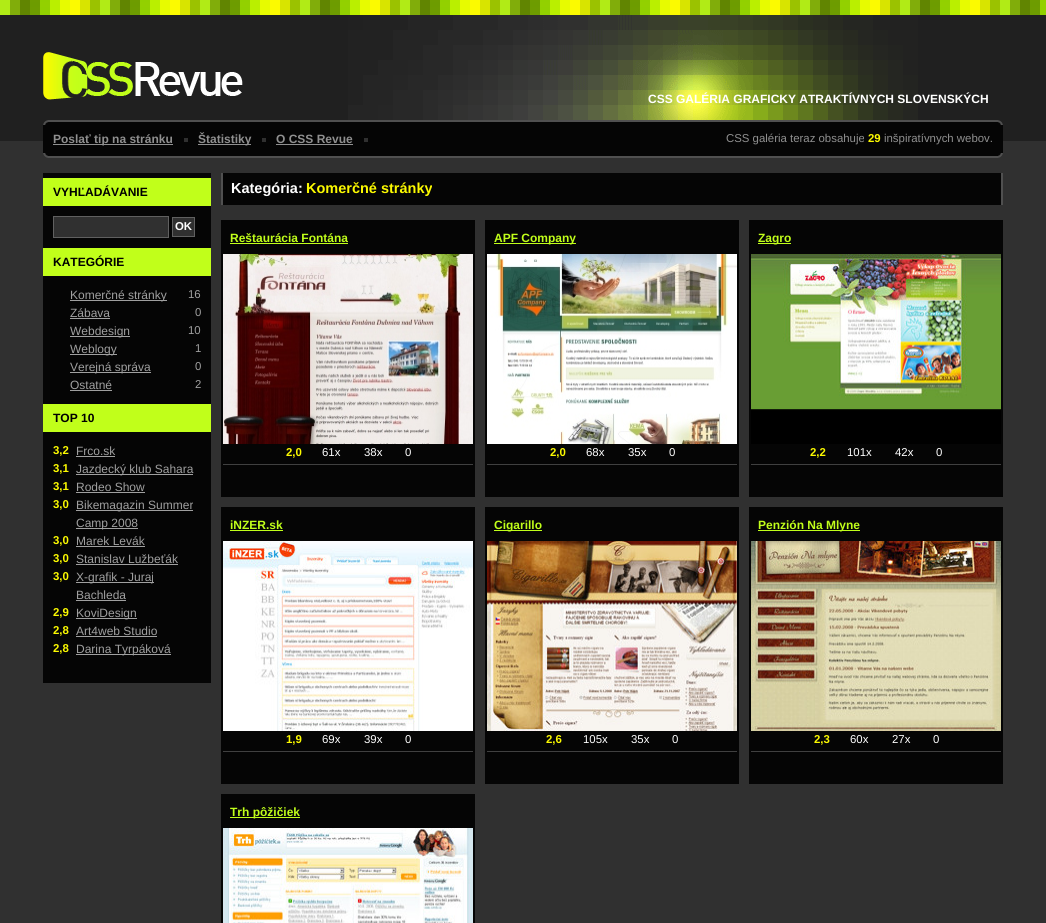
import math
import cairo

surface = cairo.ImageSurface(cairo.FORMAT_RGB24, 1046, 923)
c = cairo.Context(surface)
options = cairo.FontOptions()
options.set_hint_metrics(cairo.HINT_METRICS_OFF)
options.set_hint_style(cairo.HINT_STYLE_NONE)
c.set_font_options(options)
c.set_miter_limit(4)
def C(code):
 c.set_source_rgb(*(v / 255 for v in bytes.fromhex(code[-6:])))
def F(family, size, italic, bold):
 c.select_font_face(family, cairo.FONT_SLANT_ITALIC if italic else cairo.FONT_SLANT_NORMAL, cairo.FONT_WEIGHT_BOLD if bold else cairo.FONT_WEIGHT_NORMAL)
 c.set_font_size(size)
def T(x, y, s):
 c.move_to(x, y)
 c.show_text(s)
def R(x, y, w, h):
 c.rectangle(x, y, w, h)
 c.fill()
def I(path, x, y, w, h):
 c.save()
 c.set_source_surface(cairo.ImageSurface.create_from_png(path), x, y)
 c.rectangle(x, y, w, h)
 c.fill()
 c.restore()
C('303030')
c.paint()
I('1.png',0,0,1046,141)
I('2.png',348,15,570,105)
I('3.png',43,48,200,52)
F('Liberation Sans',12,0,1)
C('ffffff')
T(648,103,'CSS GALÉRIA GRAFICKY ATRAKTÍVNYCH SLOVENSKÝCH')
I('4.png',43,120,960,5)
C('050505')
R(43,125,960,28)
C('303030')
R(184,138,4,4)
C('909090')
R(53,144,120,1)
T(53,143,'Poslať tip na stránku')
C('303030')
R(262,138,4,4)
C('909090')
R(198,144,53,1)
T(198,143,'Štatistiky')
C('303030')
R(364,138,4,4)
C('909090')
T(276,143,'O CSS Revue')
R(276,144,77,1)
F('Liberation Sans',11.4,0,0)
T(726,142,'CSS galéria teraz obsahuje')
F('Liberation Sans',11.4,0,1)
C('fcfa00')
T(868,142,'29')
F('Liberation Sans',11.4,0,0)
C('909090')
T(884,142,'inšpiratívnych webov.')
I('5.png',43,153,960,5)
C('050505')
R(43,173,168,510)
C('c1ff1a')
R(43,178,168,28)
F('Liberation Sans',12,0,1)
C('000000')
T(53,196,'VYHĽADÁVANIE')
C('303030')
c.rectangle(53.5,216.5,115,21)
c.fill_preserve()
C('606060')
c.set_line_width(1)
c.stroke()
C('303030')
c.rectangle(172.5,217.5,22,19)
c.fill_preserve()
C('606060')
c.stroke()
F('Liberation Sans',11.4,0,1)
C('ffffff')
T(175,230,'OK')
C('c1ff1a')
R(43,248,168,28)
F('Liberation Sans',12,0,1)
C('000000')
T(53,266,'KATEGÓRIE')
C('a0a0a0')
R(70,300,97,1)
F('Liberation Sans',12,0,0)
T(70,299,'Komerčné stránky')
F('Liberation Sans',11.4,0,0)
T(188,298,'16')
F('Liberation Sans',12,0,0)
T(70,317,'Zábava')
R(70,318,40,1)
F('Liberation Sans',11.4,0,0)
T(195,316,'0')
R(70,336,60,1)
F('Liberation Sans',12,0,0)
T(70,335,'Webdesign')
F('Liberation Sans',11.4,0,0)
T(188,334,'10')
R(70,354,47,1)
F('Liberation Sans',12,0,0)
T(70,353,'Weblogy')
F('Liberation Sans',11.4,0,0)
T(195,352,'1')
R(70,372,81,1)
F('Liberation Sans',12,0,0)
T(70,371,'Verejná správa')
F('Liberation Sans',11.4,0,0)
T(195,370,'0')
F('Liberation Sans',12,0,0)
T(70,389,'Ostatné')
R(70,390,42,1)
F('Liberation Sans',11.4,0,0)
T(195,388,'2')
C('c1ff1a')
R(43,404,168,28)
F('Liberation Sans',12,0,1)
C('000000')
T(53,422,'TOP 10')
F('Liberation Sans',11.4,0,1)
C('fcfa00')
T(53,454,'3,2')
F('Liberation Sans',12,0,0)
C('a0a0a0')
T(76,455,'Frco.sk')
R(76,456,39,1)
F('Liberation Sans',11.4,0,1)
C('fcfa00')
T(53,472,'3,1')
C('a0a0a0')
R(76,474,117,1)
F('Liberation Sans',12,0,0)
T(76,473,'Jazdecký klub Sahara')
F('Liberation Sans',11.4,0,1)
C('fcfa00')
T(53,490,'3,1')
F('Liberation Sans',12,0,0)
C('a0a0a0')
T(76,491,'Rodeo Show')
R(76,492,69,1)
F('Liberation Sans',11.4,0,1)
C('fcfa00')
T(53,508,'3,0')
C('a0a0a0')
R(76,510,117,1)
F('Liberation Sans',12,0,0)
T(76,509,'Bikemagazin Summer')
R(76,528,62,1)
T(76,527,'Camp 2008')
F('Liberation Sans',11.4,0,1)
C('fcfa00')
T(53,544,'3,0')
F('Liberation Sans',12,0,0)
C('a0a0a0')
T(76,545,'Marek Levák')
R(76,546,69,1)
F('Liberation Sans',11.4,0,1)
C('fcfa00')
T(53,562,'3,0')
F('Liberation Sans',12,0,0)
C('a0a0a0')
T(76,563,'Stanislav Lužbeťák')
R(76,564,102,1)
F('Liberation Sans',11.4,0,1)
C('fcfa00')
T(53,580,'3,0')
C('a0a0a0')
R(76,582,78,1)
F('Liberation Sans',12,0,0)
T(76,581,'X-grafik - Juraj')
T(76,599,'Bachleda')
R(76,600,50,1)
F('Liberation Sans',11.4,0,1)
C('fcfa00')
T(53,616,'2,9')
C('a0a0a0')
R(76,618,61,1)
F('Liberation Sans',12,0,0)
T(76,617,'KoviDesign')
F('Liberation Sans',11.4,0,1)
C('fcfa00')
T(53,634,'2,8')
F('Liberation Sans',12,0,0)
C('a0a0a0')
T(76,635,'Art4web Studio')
R(76,636,81,1)
F('Liberation Sans',11.4,0,1)
C('fcfa00')
T(53,652,'2,8')
C('a0a0a0')
R(76,654,95,1)
F('Liberation Sans',12,0,0)
T(76,653,'Darina Tyrpáková')
I('6.png',221,173,782,32)
F('Liberation Sans',14.5,0,1)
C('ffffff')
T(231,193,'Kategória:')
C('fcfa00')
T(306,193,'Komerčné stránky')
C('050505')
R(221,220,254,277)
F('Liberation Sans',12,0,1)
C('c1ff1a')
T(230,242,'Reštaurácia Fontána')
R(230,243,118,1)
I('7.png',223,254,250,190)
C('404040')
R(223,464,250,1)
F('Liberation Sans',11.4,0,1)
C('fcfa00')
T(286,456,'2,0')
F('Liberation Sans',11.4,0,0)
C('ffffff')
T(322,456,'61x')
T(364,456,'38x')
T(405,456,'0')
C('050505')
R(485,220,254,277)
C('c1ff1a')
R(494,243,82,1)
F('Liberation Sans',12,0,1)
T(494,242,'APF Company')
I('8.png',487,254,250,190)
C('404040')
R(487,464,250,1)
F('Liberation Sans',11.4,0,1)
C('fcfa00')
T(550,456,'2,0')
F('Liberation Sans',11.4,0,0)
C('ffffff')
T(586,456,'68x')
T(628,456,'35x')
T(669,456,'0')
C('050505')
R(749,220,254,277)
C('c1ff1a')
R(758,243,33,1)
F('Liberation Sans',12,0,1)
T(758,242,'Zagro')
I('9.png',751,254,250,190)
C('404040')
R(751,464,250,1)
F('Liberation Sans',11.4,0,1)
C('fcfa00')
T(810,456,'2,2')
F('Liberation Sans',11.4,0,0)
C('ffffff')
T(847,456,'101x')
T(895,456,'42x')
T(936,456,'0')
C('050505')
R(221,507,254,277)
F('Liberation Sans',12,0,1)
C('c1ff1a')
T(230,529,'iNZER.sk')
R(230,530,53,1)
I('10.png',223,541,250,190)
C('404040')
R(223,751,250,1)
F('Liberation Sans',11.4,0,1)
C('fcfa00')
T(286,743,'1,9')
F('Liberation Sans',11.4,0,0)
C('ffffff')
T(322,743,'69x')
T(364,743,'39x')
T(405,743,'0')
C('050505')
R(485,507,254,277)
C('c1ff1a')
R(494,530,48,1)
F('Liberation Sans',12,0,1)
T(494,529,'Cigarillo')
I('11.png',487,541,250,190)
C('404040')
R(487,751,250,1)
F('Liberation Sans',11.4,0,1)
C('fcfa00')
T(546,743,'2,6')
F('Liberation Sans',11.4,0,0)
C('ffffff')
T(583,743,'105x')
T(631,743,'35x')
T(672,743,'0')
C('050505')
R(749,507,254,277)
C('c1ff1a')
R(758,530,102,1)
F('Liberation Sans',12,0,1)
T(758,529,'Penzión Na Mlyne')
I('12.png',751,541,250,190)
C('404040')
R(751,751,250,1)
F('Liberation Sans',11.4,0,1)
C('fcfa00')
T(814,743,'2,3')
F('Liberation Sans',11.4,0,0)
C('ffffff')
T(850,743,'60x')
T(892,743,'27x')
T(933,743,'0')
C('050505')
R(221,794,254,129)
C('c1ff1a')
R(230,817,70,1)
F('Liberation Sans',12,0,1)
T(230,816,'Trh pôžičiek')
I('13.png',223,828,250,95)
surface.write_to_png('o.png')
